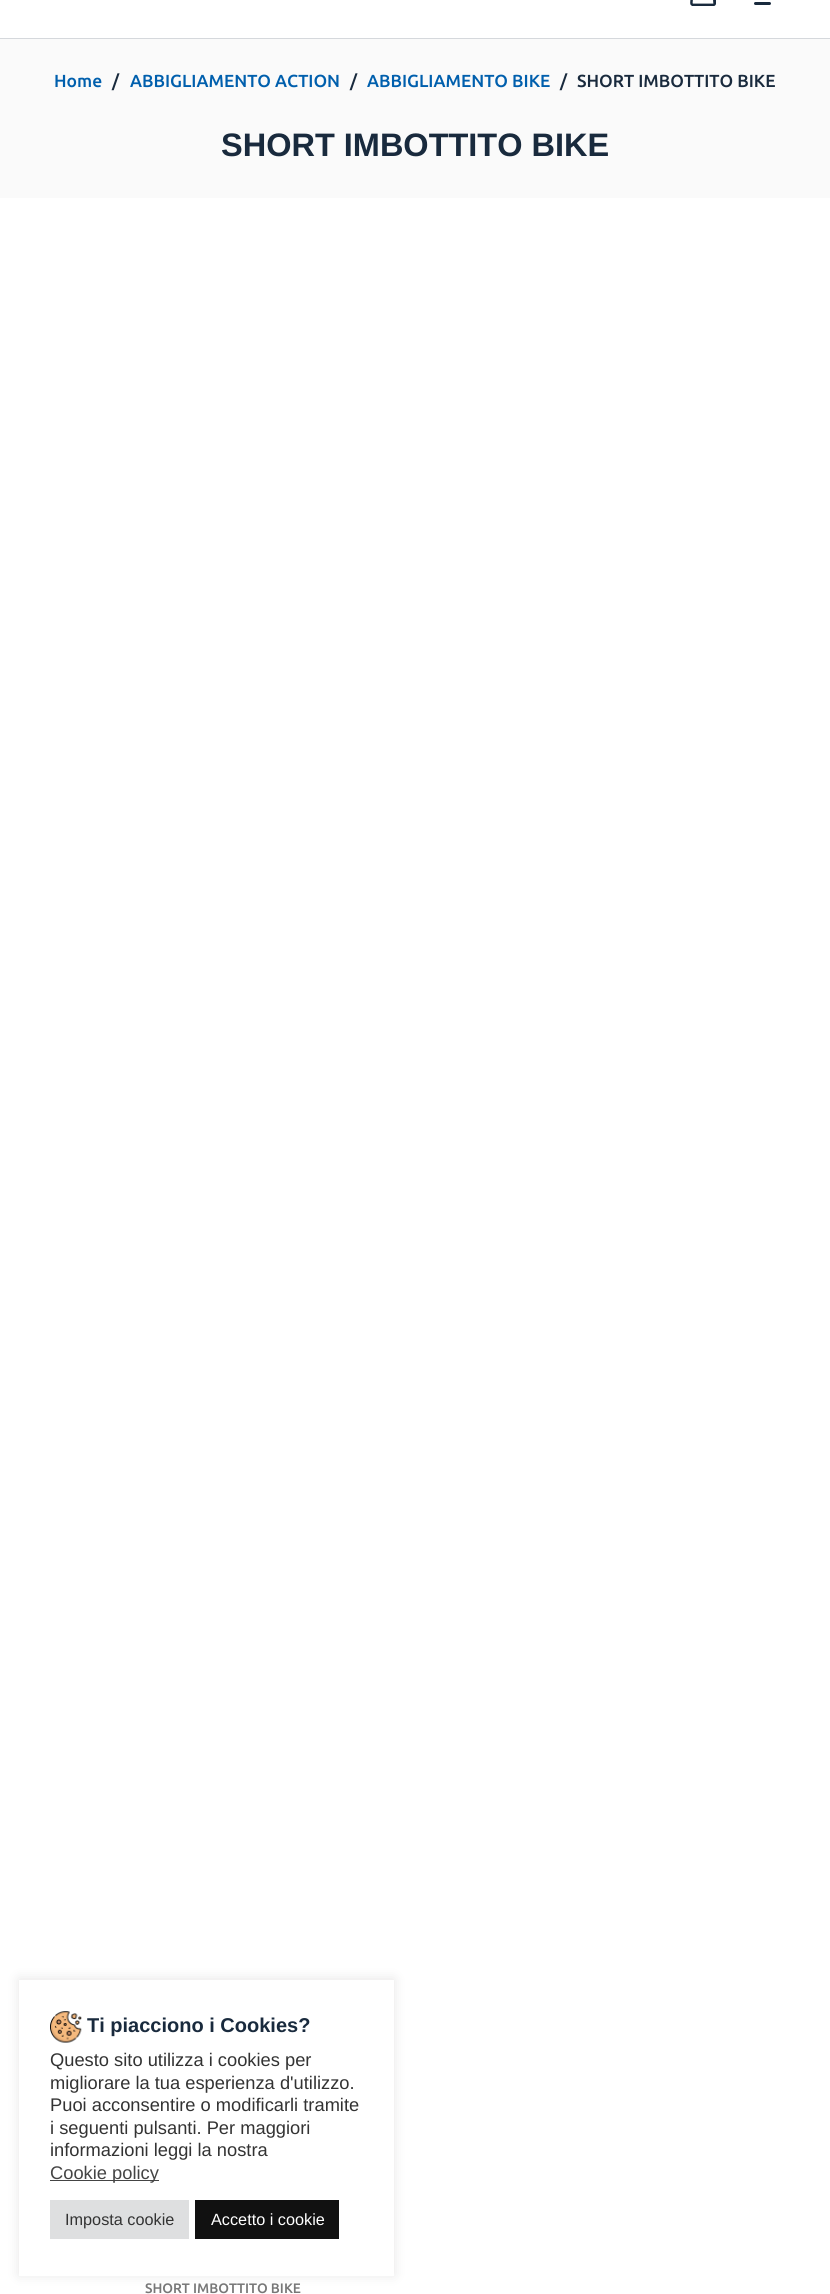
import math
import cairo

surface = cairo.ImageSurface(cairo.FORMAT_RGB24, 830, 2294)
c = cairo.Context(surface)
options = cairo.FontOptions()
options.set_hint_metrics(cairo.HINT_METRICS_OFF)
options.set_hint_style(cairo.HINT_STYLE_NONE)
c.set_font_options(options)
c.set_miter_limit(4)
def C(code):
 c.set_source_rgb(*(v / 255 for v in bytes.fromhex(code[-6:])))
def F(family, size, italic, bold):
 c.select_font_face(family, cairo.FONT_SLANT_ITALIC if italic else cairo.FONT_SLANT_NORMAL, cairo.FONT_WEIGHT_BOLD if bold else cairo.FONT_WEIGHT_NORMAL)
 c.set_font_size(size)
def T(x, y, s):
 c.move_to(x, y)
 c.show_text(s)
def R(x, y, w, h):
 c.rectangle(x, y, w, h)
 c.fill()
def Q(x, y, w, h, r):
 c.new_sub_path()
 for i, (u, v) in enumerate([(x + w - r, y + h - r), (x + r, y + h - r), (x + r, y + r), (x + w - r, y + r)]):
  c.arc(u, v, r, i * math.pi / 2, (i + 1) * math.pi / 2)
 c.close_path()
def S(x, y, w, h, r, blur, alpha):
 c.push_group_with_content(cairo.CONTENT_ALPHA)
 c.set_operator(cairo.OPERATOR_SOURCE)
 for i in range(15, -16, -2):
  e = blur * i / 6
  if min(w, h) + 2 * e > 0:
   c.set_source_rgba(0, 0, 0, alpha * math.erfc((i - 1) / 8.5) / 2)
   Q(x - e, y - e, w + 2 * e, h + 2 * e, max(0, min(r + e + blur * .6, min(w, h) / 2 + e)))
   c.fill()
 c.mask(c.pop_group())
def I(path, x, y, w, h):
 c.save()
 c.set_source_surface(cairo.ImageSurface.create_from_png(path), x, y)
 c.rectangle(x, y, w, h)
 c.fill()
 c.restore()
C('ffffff')
c.paint()
C('d5d8dc')
R(0,38,830,1)
I('1.png',690,0,26,6)
C('192a3d')
Q(754,2,17,3,1.5)
c.fill()
C('fafafa')
R(0,39,830,159)
F('Ubuntu Medium',17.5,0,0)
C('005fad')
T(54,87,'Home')
C('192a3d')
T(112,87,'/')
C('005fad')
T(130,87,'ABBIGLIAMENTO ACTION')
C('192a3d')
T(350,87,'/')
C('005fad')
T(367,87,'ABBIGLIAMENTO BIKE')
C('192a3d')
T(560,87,'/')
T(577,87,'SHORT IMBOTTITO BIKE')
F('Liberation Sans',32.5,0,1)
T(221,156,'SHORT IMBOTTITO BIKE')
F('Ubuntu Medium',13.75,0,0)
C('777777')
T(145,2293,'SHORT IMBOTTITO BIKE')
C('acabab')
S(19,1979,375,296,0,6,.3)
C('ffffff')
R(19,1980,375,296)
I('2.png',50,2011,32,32)
F('Liberation Sans',20,0,1)
C('192a3d')
T(87,2032,'Ti piacciono i Cookies?')
F('Liberation Sans',18.3,0,0)
C('333333')
T(50,2066,'Questo sito utilizza i cookies per')
T(50,2089,'migliorare la tua esperienza d\'utilizzo.')
T(50,2111,'Puoi acconsentire o modificarli tramite')
T(50,2134,'i seguenti pulsanti. Per maggiori')
T(50,2156,'informazioni leggi la nostra')
C('444444')
R(50,2180,109,1)
T(50,2179,'Cookie policy')
C('dedfe0')
R(50,2200,139,39)
F('Liberation Sans',16.25,0,0)
C('333333')
T(65,2225,'Imposta cookie')
C('111111')
R(195,2200,144,39)
C('ffffff')
T(211,2225,'Accetto i cookie')
surface.write_to_png('o.png')
